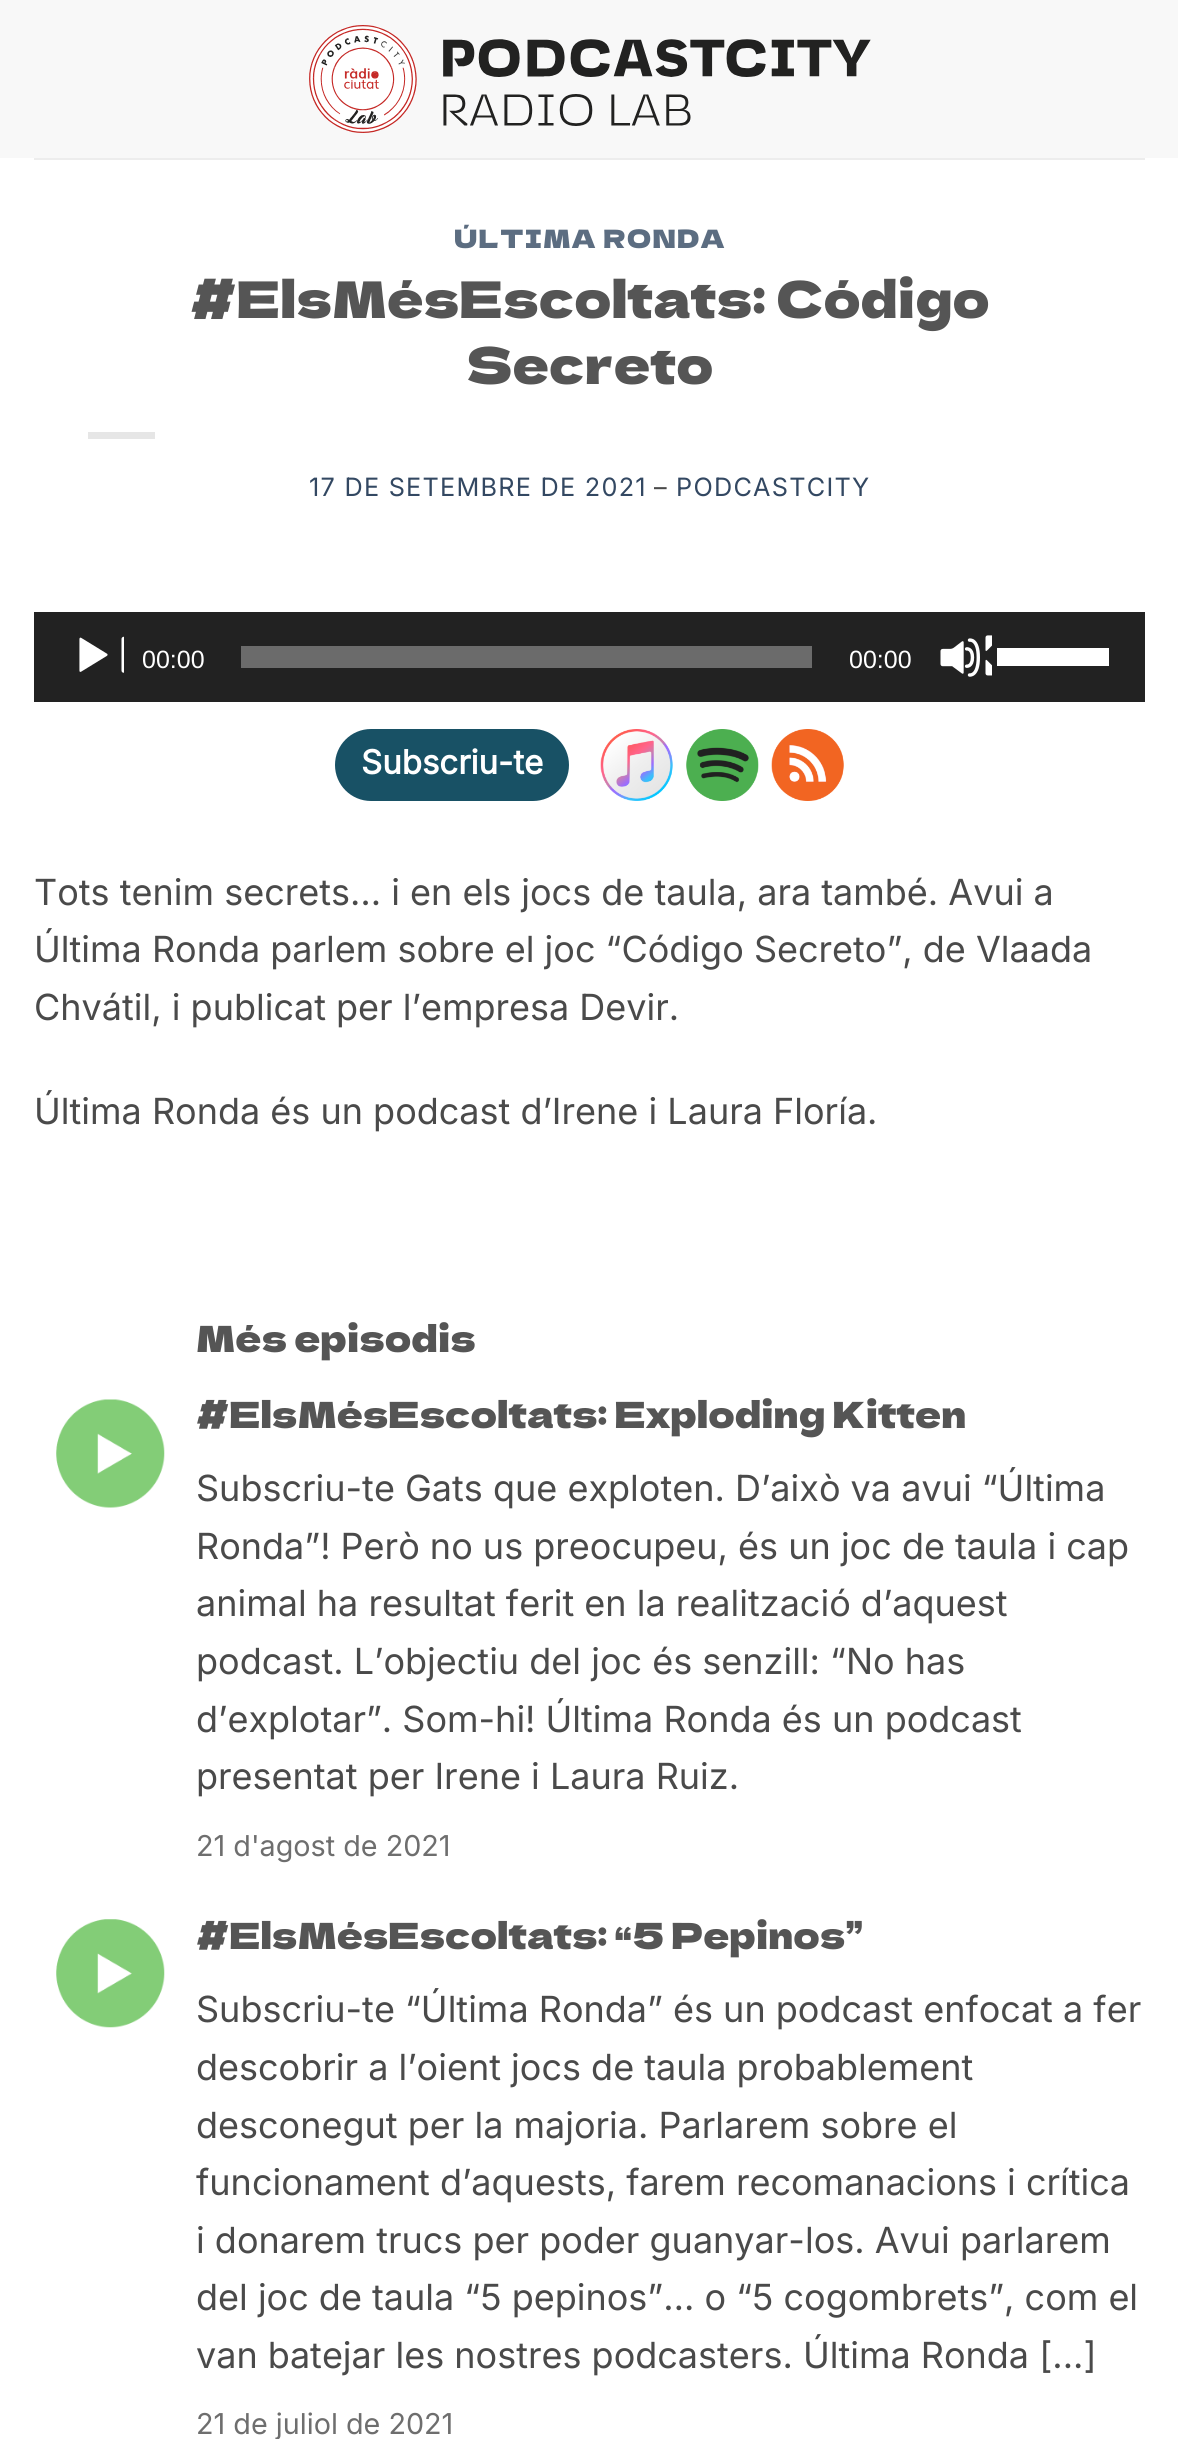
import math
import cairo

surface = cairo.ImageSurface(cairo.FORMAT_RGB24, 1178, 2439)
c = cairo.Context(surface)
options = cairo.FontOptions()
options.set_hint_metrics(cairo.HINT_METRICS_OFF)
options.set_hint_style(cairo.HINT_STYLE_NONE)
c.set_font_options(options)
c.set_miter_limit(4)
def C(code):
 c.set_source_rgb(*(v / 255 for v in bytes.fromhex(code[-6:])))
def F(family, size, italic, bold):
 c.select_font_face(family, cairo.FONT_SLANT_ITALIC if italic else cairo.FONT_SLANT_NORMAL, cairo.FONT_WEIGHT_BOLD if bold else cairo.FONT_WEIGHT_NORMAL)
 c.set_font_size(size)
def T(x, y, s):
 c.move_to(x, y)
 c.show_text(s)
def L(x, y, s, letter, word):
 c.move_to(x, y)
 for ch in s:
  c.show_text(ch)
  c.rel_move_to(letter + word * (ch == ' '), 0)
def R(x, y, w, h):
 c.rectangle(x, y, w, h)
 c.fill()
def Q(x, y, w, h, r):
 c.new_sub_path()
 for i, (u, v) in enumerate([(x + w - r, y + h - r), (x + r, y + h - r), (x + r, y + r), (x + w - r, y + r)]):
  c.arc(u, v, r, i * math.pi / 2, (i + 1) * math.pi / 2)
 c.close_path()
def I(path, x, y, w, h):
 c.save()
 c.set_source_surface(cairo.ImageSurface.create_from_png(path), x, y)
 c.rectangle(x, y, w, h)
 c.fill()
 c.restore()
C('ffffff')
c.paint()
C('f8f8f8')
R(0,0,1178,158)
I('1.png',309,25,562,108)
C('ededed')
R(34,158,1111,2)
F('Dela Gothic One',25.25,0,0)
C('5c6d81')
L(454,248,'ÚLTIMA RONDA',1.25,0)
F('Dela Gothic One',50.4,0,0)
C('555555')
T(190,318,'#ElsMésEscoltats: Código')
T(466,384,'Secreto')
C('e6e6e6')
R(88,432,67,7)
F('Inter',25.25,0,0)
C('334862')
L(309,496,'17 DE SETEMBRE DE 2021',1.25,0)
C('4a4a4a')
L(654,496,'–',1.25,0)
C('334862')
L(676,496,'PODCASTCITY',1.25,0)
C('222222')
R(34,612,1111,90)
I('2.png',79,636,45,37)
F('Liberation Sans',25,0,0)
C('ffffff')
T(142,668,'00:00')
C('6b6b6b')
R(241,646,571,22)
C('ffffff')
T(849,668,'00:00')
I('3.png',940,635,52,42)
R(997,648,112,18)
C('185165')
Q(335,729,234,72,36)
c.fill()
F('Inter',33,0,1)
C('ffffff')
T(361,774,'Subscriu-te')
I('4.png',600,729,73,72)
I('5.png',686,729,73,72)
I('6.png',771,729,73,72)
F('Inter',36,0,0)
C('4a4a4a')
T(34,905,'Tots tenim secrets… i en els jocs de taula, ara també. Avui a')
T(34,962,'Última Ronda parlem sobre el joc “Código Secreto”, de Vlaada')
T(34,1020,'Chvátil, i publicat per l’empresa Devir.')
T(34,1124,'Última Ronda és un podcast d’Irene i Laura Floría.')
F('Dela Gothic One',36,0,0)
C('555555')
T(196,1352,'Més episodis')
I('7.png',56,1399,109,109)
T(196,1428,'#ElsMésEscoltats: Exploding Kitten')
F('Inter',36,0,0)
C('4a4a4a')
T(196,1501,'Subscriu-te Gats que exploten. D’això va avui “Última')
T(196,1559,'Ronda”! Però no us preocupeu, és un joc de taula i cap')
T(196,1616,'animal ha resultat ferit en la realització d’aquest')
T(196,1674,'podcast. L’objectiu del joc és senzill: “No has')
T(196,1732,'d’explotar”. Som-hi! Última Ronda és un podcast')
T(196,1789,'presentat per Irene i Laura Ruiz.')
F('Inter',28.75,0,0)
C('6e6e6e')
T(196,1856,'21 d\'agost de 2021')
I('8.png',56,1919,109,109)
F('Dela Gothic One',36,0,0)
C('555555')
T(196,1949,'#ElsMésEscoltats: “5 Pepinos”')
F('Inter',36,0,0)
C('4a4a4a')
T(196,2022,'Subscriu-te “Última Ronda” és un podcast enfocat a fer')
T(196,2080,'descobrir a l’oient jocs de taula probablement')
T(196,2138,'desconegut per la majoria. Parlarem sobre el')
T(196,2195,'funcionament d’aquests, farem recomanacions i crítica')
T(196,2253,'i donarem trucs per poder guanyar-los. Avui parlarem')
T(196,2310,'del joc de taula “5 pepinos”… o “5 cogombrets”, com el')
T(196,2368,'van batejar les nostres podcasters. Última Ronda [...]')
F('Inter',28.75,0,0)
C('6e6e6e')
T(196,2434,'21 de juliol de 2021')
surface.write_to_png('o.png')
